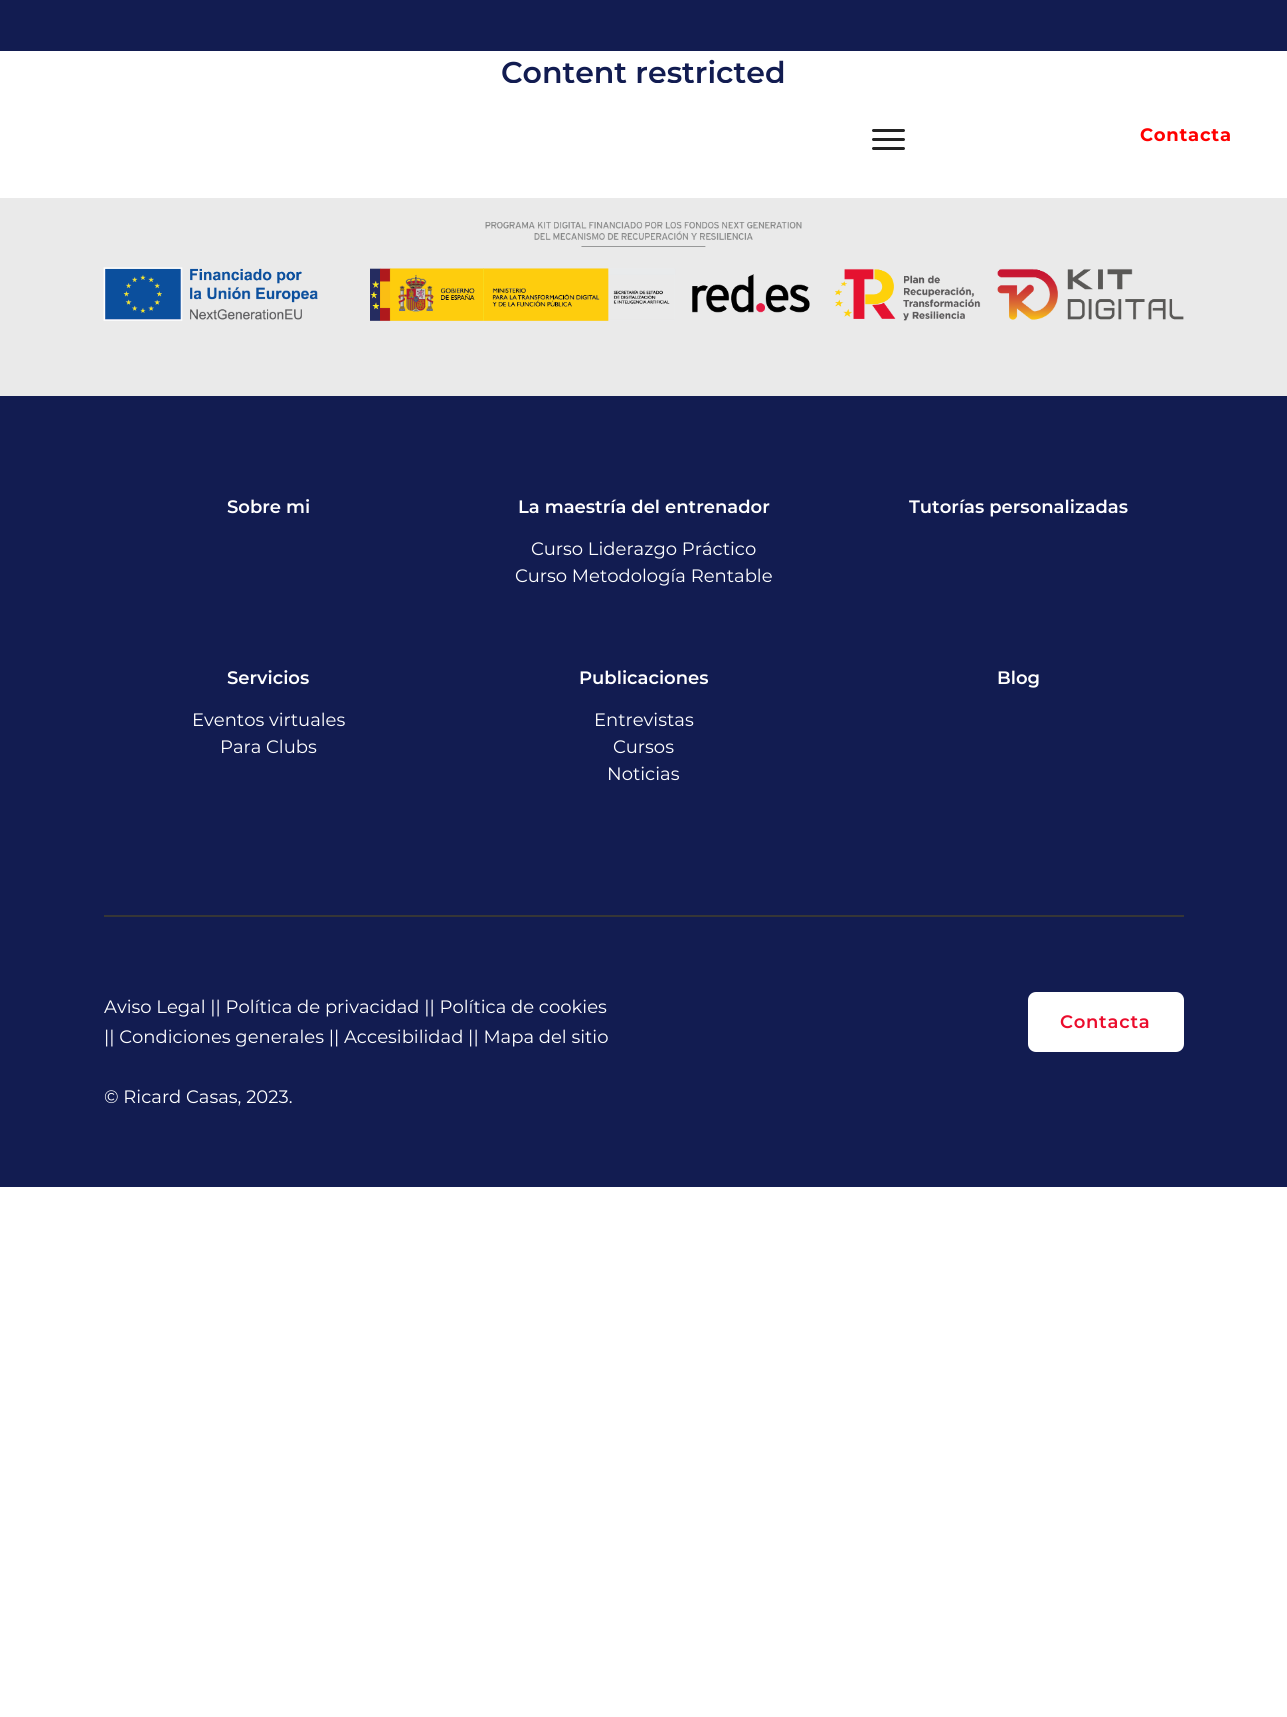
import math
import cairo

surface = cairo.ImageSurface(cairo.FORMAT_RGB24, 1287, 1717)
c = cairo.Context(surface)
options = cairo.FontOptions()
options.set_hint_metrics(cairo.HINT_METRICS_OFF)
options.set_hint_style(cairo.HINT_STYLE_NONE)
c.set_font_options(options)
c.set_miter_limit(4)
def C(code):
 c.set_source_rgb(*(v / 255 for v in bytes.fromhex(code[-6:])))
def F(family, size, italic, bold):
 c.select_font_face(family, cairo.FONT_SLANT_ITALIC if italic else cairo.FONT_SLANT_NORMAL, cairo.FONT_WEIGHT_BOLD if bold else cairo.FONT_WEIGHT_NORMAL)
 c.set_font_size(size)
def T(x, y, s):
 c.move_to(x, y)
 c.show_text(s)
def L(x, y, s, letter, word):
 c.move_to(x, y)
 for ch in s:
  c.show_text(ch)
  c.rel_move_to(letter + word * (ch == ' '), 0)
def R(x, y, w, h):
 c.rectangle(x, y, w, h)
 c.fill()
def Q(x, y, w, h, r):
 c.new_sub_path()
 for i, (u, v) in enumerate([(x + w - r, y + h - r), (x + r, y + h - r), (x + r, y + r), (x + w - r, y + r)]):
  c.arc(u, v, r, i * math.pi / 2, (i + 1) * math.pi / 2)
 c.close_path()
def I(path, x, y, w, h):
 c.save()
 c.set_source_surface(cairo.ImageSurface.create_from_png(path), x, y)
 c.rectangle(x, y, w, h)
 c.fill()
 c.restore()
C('ffffff')
c.paint()
F('Montserrat SemiBold',30,0,0)
C('121c51')
T(501,83,'Content restricted')
R(0,0,1287,51)
C('ffffff')
R(511,83,265,1)
C('232323')
Q(872,129,33,3,1.5)
c.fill()
Q(872,138,33,3,1.5)
c.fill()
Q(872,147,33,3,1.5)
c.fill()
F('Montserrat',18,0,1)
C('ff0000')
L(1140,141,'Contacta',.75,0)
C('eaeaea')
R(0,198,1287,198)
I('1.png',103,222,1081,99)
C('121c51')
R(0,396,1287,791)
F('Montserrat SemiBold',18,0,0)
C('ffffff')
T(227,513,'Sobre mi')
T(518,513,'La maestría del entrenador')
F('Montserrat',18,0,0)
T(531,555,'Curso Liderazgo Práctico')
T(515,582,'Curso Metodología Rentable')
F('Montserrat SemiBold',18,0,0)
T(909,513,'Tutorías personalizadas')
T(227,684,'Servicios')
F('Montserrat',18,0,0)
T(192,726,'Eventos virtuales')
T(220,753,'Para Clubs')
F('Montserrat SemiBold',18,0,0)
T(579,684,'Publicaciones')
F('Montserrat',18,0,0)
T(594,726,'Entrevistas')
T(613,753,'Cursos')
T(607,780,'Noticias')
F('Montserrat SemiBold',18,0,0)
T(997,684,'Blog')
C('363636')
R(104,915,1080,2)
F('Montserrat',18,0,0)
C('ffffff')
T(104,1013,'Aviso Legal || Política de privacidad || Política de cookies')
T(104,1043,'|| Condiciones generales || Accesibilidad || Mapa del sitio')
T(104,1103,'© Ricard Casas, 2023.')
Q(1029.5,993.5,153,57,6.5)
c.fill_preserve()
c.set_line_width(3)
c.stroke()
F('Montserrat SemiBold',18,0,0)
C('eb0c2c')
L(1060,1028,'Contacta',.75,0)
surface.write_to_png('o.png')
